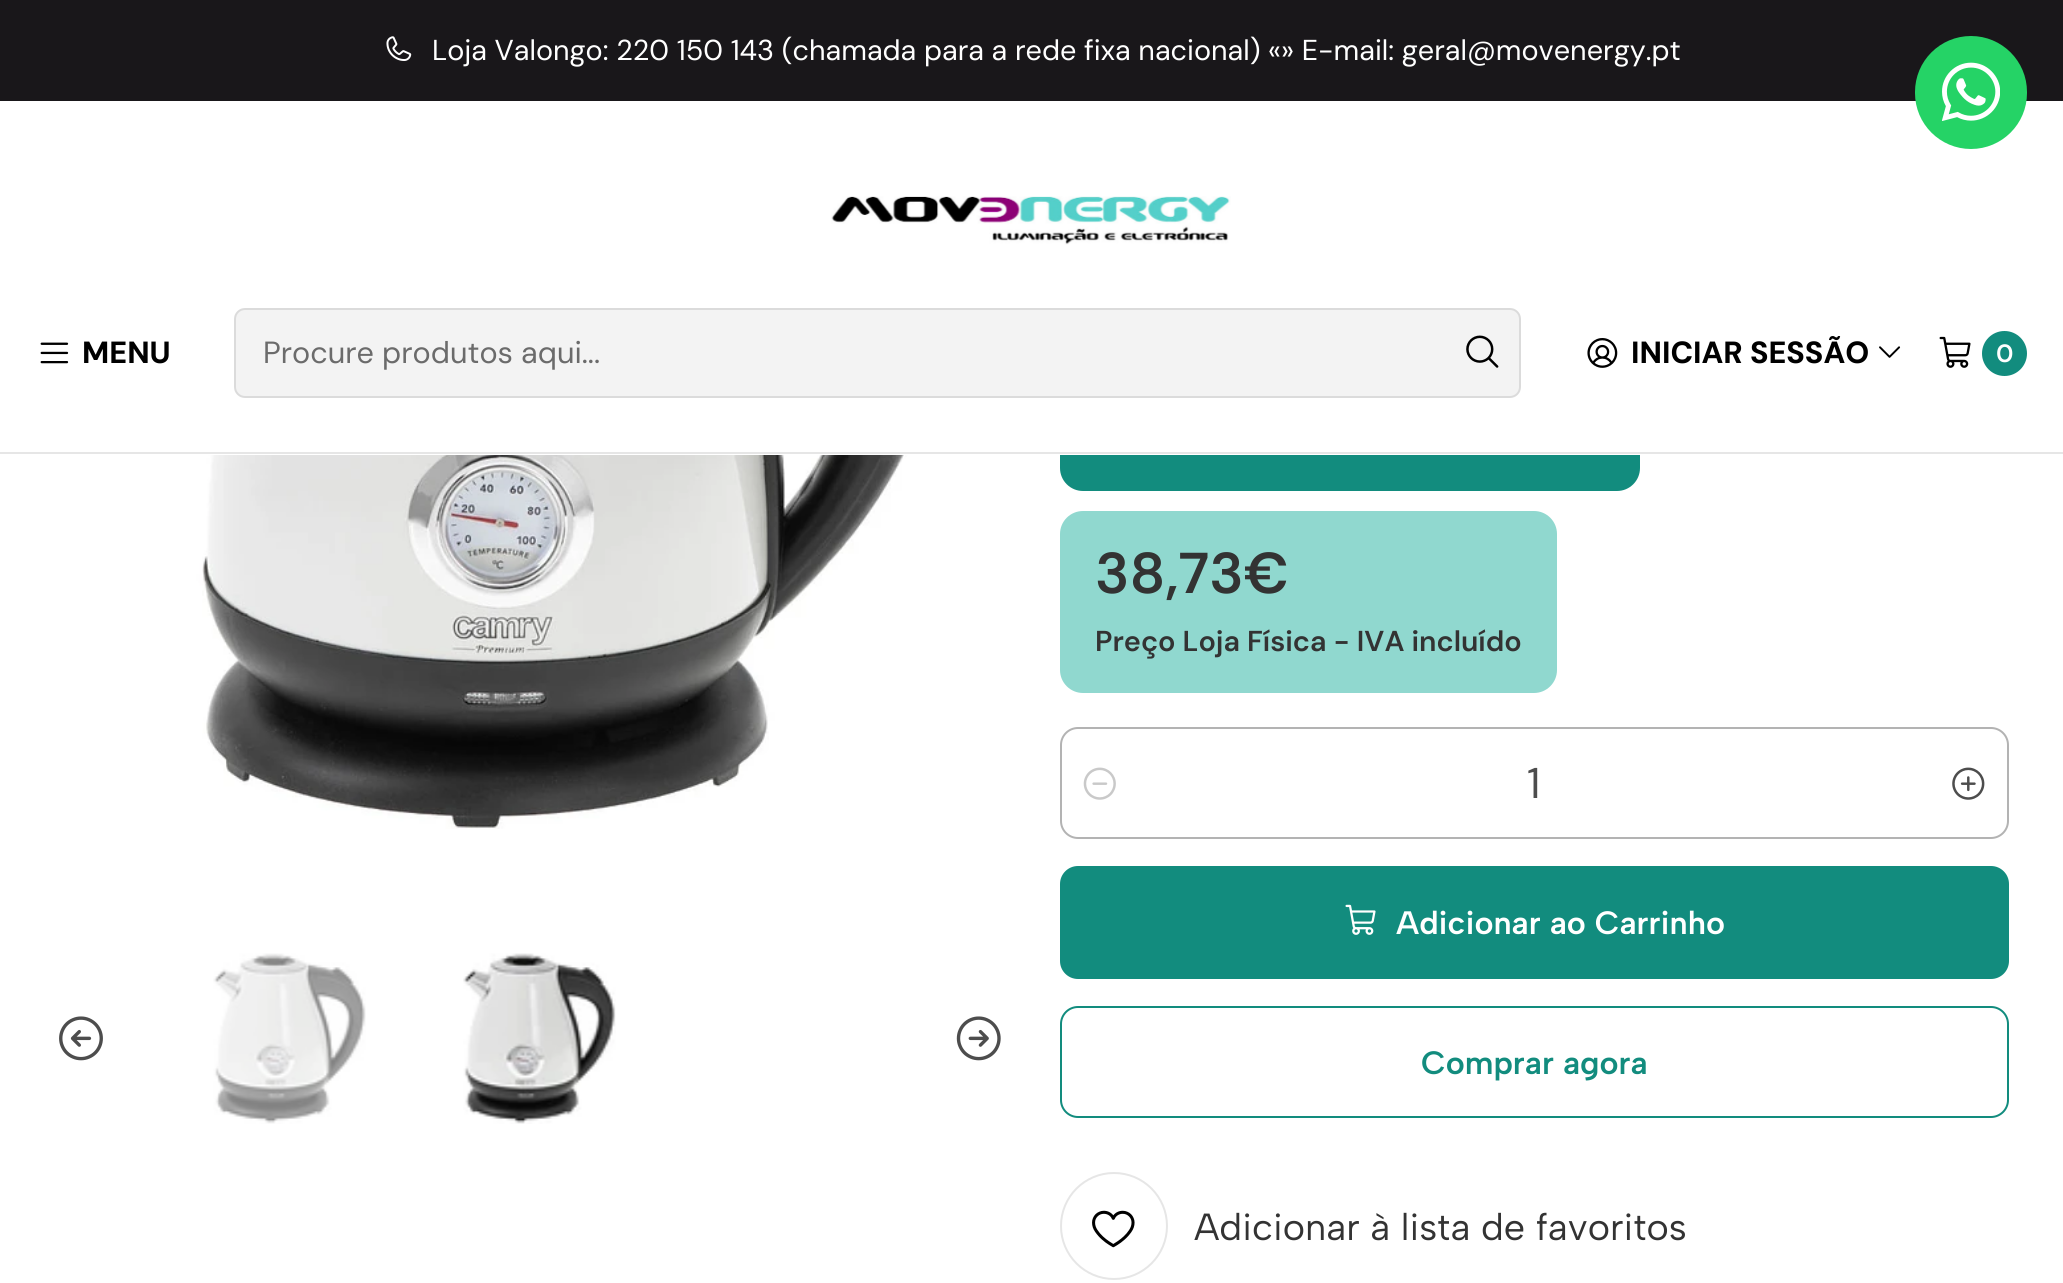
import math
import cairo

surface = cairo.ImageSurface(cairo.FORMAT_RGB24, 2063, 1283)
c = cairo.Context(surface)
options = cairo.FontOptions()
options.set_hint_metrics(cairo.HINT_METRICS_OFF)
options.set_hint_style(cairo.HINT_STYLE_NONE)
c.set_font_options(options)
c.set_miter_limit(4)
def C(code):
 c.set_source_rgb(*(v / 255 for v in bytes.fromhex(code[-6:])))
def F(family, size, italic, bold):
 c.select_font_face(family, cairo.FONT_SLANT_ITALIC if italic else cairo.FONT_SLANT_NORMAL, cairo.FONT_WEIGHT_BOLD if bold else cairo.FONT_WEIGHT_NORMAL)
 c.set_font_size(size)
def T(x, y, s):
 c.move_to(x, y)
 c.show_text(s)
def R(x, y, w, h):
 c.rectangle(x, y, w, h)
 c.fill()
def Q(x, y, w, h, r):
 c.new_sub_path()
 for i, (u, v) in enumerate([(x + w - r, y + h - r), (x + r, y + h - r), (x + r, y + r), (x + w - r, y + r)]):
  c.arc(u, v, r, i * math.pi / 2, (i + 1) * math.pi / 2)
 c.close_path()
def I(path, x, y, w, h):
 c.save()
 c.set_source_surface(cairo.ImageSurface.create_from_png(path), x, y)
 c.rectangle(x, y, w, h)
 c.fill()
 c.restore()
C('ffffff')
c.paint()
C('19171a')
R(0,0,2063,101)
I('1.png',386,36,26,25)
F('DM Sans',28.8,0,0)
C('ffffff')
T(432,60,'Loja Valongo: 220 150 143 (chamada para a rede fixa nacional) «» E-mail: geral@movenergy.pt')
C('128c7e')
Q(1060,306,580,185,23)
c.fill()
C('ffffff')
R(1060,306,580,149)
C('e6e6e6')
R(0,452,2063,2)
I('2.png',831,196,400,49)
I('3.png',40,342,29,22)
F('DM Sans ExtraBold',30.6,0,0)
C('000000')
T(82,363,'MENU')
C('f3f3f3')
Q(234,308,1287,90,11)
c.fill()
Q(235,309,1285,88,10)
c.set_source_rgba(0,0,0,0.1)
c.stroke()
F('DM Sans',30.6,0,0)
C('6b6b6b')
T(263,363,'Procure produtos aqui...')
I('4.png',1466,335,33,33)
I('5.png',1587,338,31,30)
F('DM Sans ExtraBold',30.6,0,0)
C('000000')
T(1631,363,'INICIAR SESSÃO')
I('6.png',1879,346,22,12)
I('7.png',1939,336,32,32)
C('128c7e')
c.arc(2004.5,353.5,22.5,0,2 * math.pi)
c.fill()
F('DM Sans SemiBold',25,0,0)
C('ffffff')
T(1996,362,'0')
I('8.png',194,455,755,374)
I('9.png',59,1016,44,45)
I('10.png',213,953,153,171)
I('11.png',463,953,153,171)
I('12.png',956,1016,45,45)
C('90d8cf')
Q(1060,511,497,182,23)
c.fill()
F('DM Sans SemiBold',57.5,0,0)
C('333333')
T(1095,593,'38,73€')
F('DM Sans SemiBold',28.8,0,0)
T(1095,651,'Preço Loja Física - IVA incluído')
Q(1061,728,947,110,17)
C('b3b3b3')
c.stroke()
I('13.png',1083,767,33,33)
F('DM Sans',43,0,0)
C('4d4d4d')
T(1527,798,'1')
I('14.png',1952,767,33,33)
C('128c7e')
Q(1060,866,949,113,18)
c.fill()
I('15.png',1345,904,31,31)
F('Albert Sans SemiBold',32.4,0,0)
C('ffffff')
T(1396,934,'Adicionar ao Carrinho')
Q(1061,1007,947,110,17)
C('128c7e')
c.stroke()
T(1421,1074,'Comprar agora')
c.new_path()
c.arc(1114,1226,53,0,2 * math.pi)
C('e6e6e6')
c.stroke()
I('16.png',1092,1210,43,38)
F('Albert Sans',37.75,0,0)
C('333333')
T(1194,1240,'Adicionar à lista de favoritos')
C('25d366')
Q(1915,36,112,113,56)
c.fill()
I('17.png',1942,62,58,59)
surface.write_to_png('o.png')
